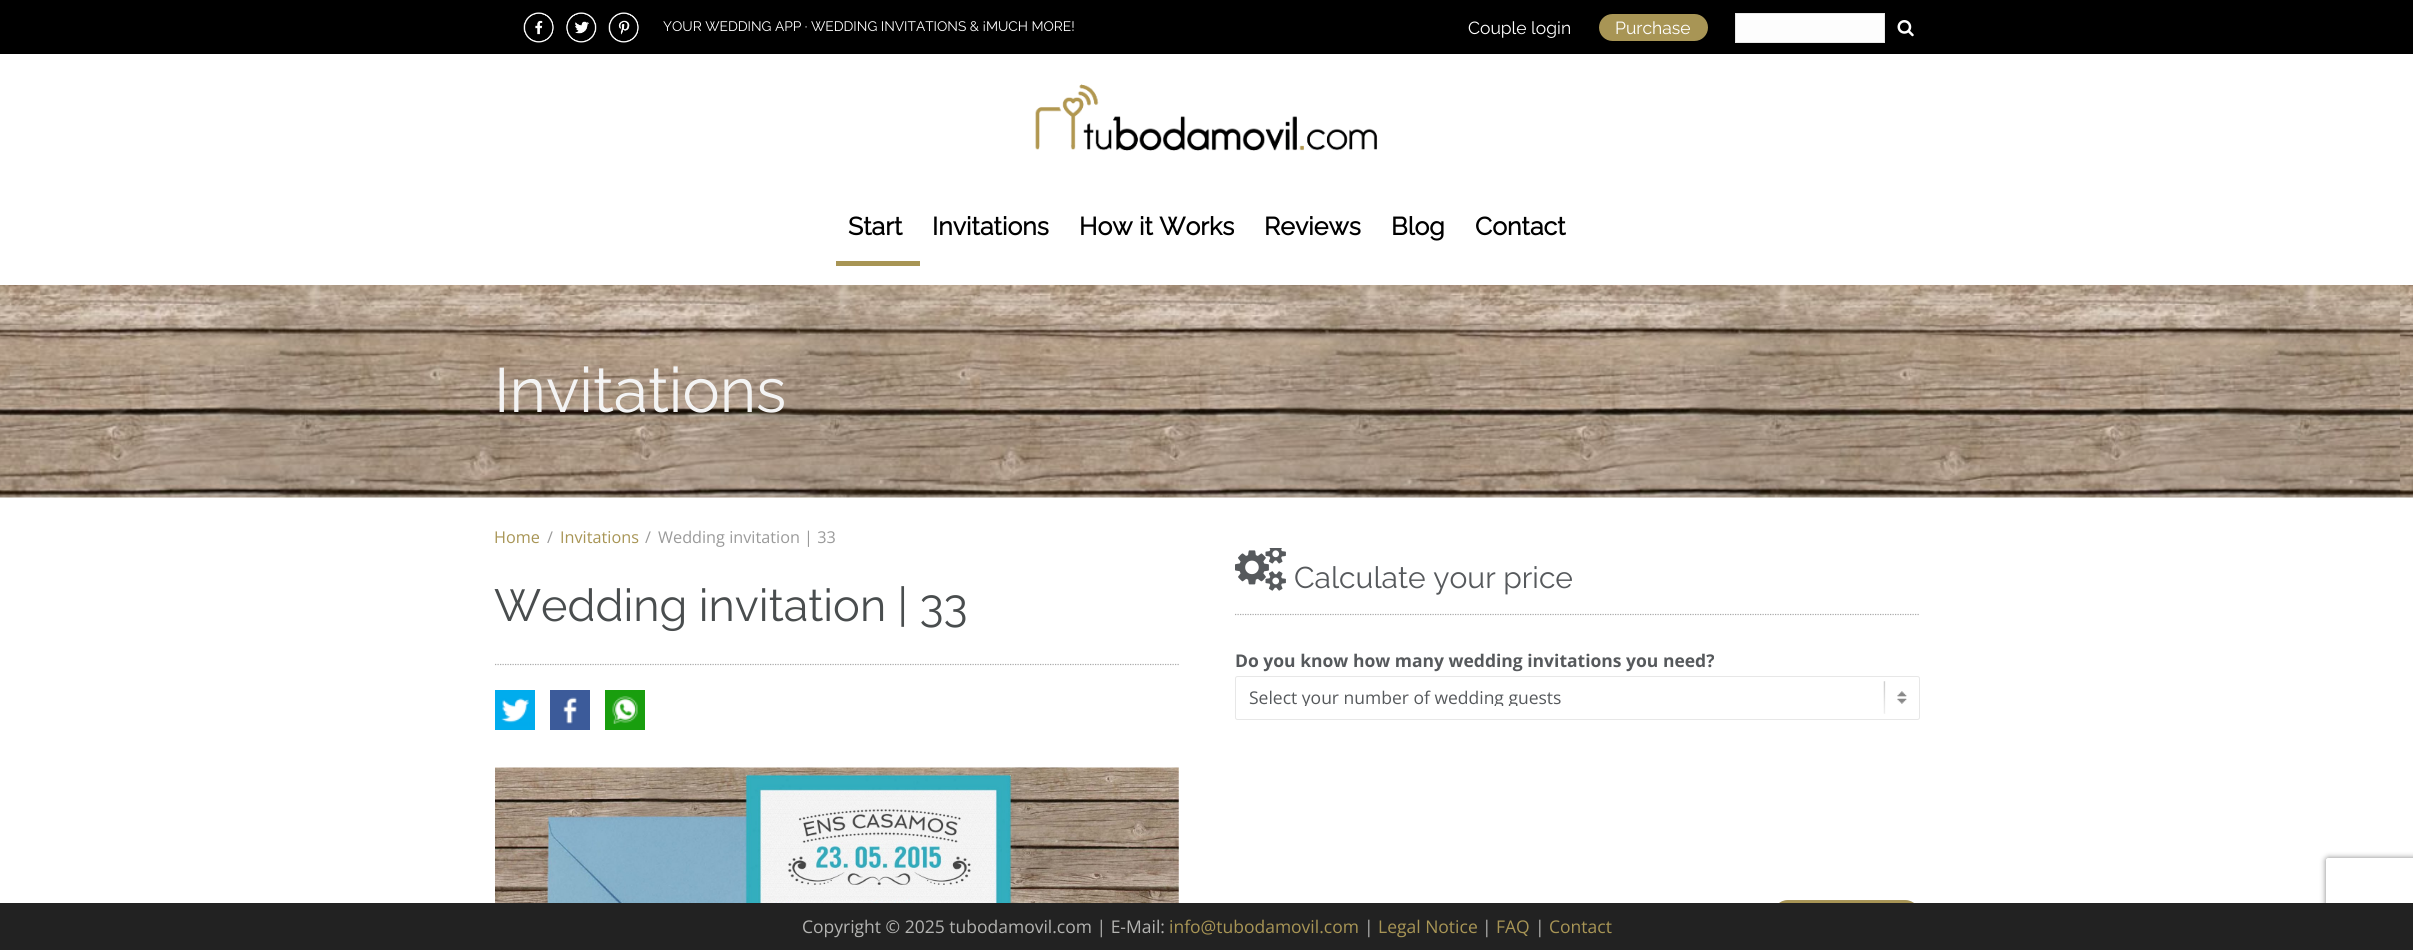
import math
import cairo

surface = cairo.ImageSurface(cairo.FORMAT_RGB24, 2413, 950)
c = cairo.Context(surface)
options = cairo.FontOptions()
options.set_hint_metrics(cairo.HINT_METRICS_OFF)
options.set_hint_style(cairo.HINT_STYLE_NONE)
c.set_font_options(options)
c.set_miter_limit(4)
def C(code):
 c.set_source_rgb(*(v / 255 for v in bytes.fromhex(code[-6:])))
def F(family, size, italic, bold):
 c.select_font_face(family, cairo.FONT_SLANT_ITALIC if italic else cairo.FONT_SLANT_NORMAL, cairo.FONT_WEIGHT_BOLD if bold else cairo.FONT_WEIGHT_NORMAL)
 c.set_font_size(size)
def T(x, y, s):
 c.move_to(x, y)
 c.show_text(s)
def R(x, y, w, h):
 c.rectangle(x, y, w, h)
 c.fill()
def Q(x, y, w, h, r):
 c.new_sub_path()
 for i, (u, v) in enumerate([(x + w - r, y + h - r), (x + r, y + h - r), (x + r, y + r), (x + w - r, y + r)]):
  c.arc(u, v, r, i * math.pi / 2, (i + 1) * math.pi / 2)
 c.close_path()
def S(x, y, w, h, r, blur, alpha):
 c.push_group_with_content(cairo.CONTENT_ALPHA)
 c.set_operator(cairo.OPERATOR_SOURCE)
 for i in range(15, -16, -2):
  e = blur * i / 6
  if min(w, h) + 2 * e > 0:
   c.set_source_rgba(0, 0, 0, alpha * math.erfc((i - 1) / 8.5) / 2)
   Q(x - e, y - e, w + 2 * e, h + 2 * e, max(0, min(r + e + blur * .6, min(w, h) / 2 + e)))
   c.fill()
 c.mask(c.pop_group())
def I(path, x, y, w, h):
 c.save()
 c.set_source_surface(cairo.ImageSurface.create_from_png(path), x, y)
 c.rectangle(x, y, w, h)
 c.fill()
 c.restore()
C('ffffff')
c.paint()
C('000000')
R(0,0,2413,54)
I('1.png',523,12,31,31)
I('2.png',566,12,31,31)
I('3.png',608,12,31,31)
F('Raleway Thin',13.75,0,0)
C('ffffff')
T(663,31,'YOUR WEDDING APP · WEDDING INVITATIONS & ¡MUCH MORE!')
F('Raleway Thin',17.5,0,0)
T(1468,34,'Couple login')
C('a89555')
Q(1599,14,109,27,13.5)
c.fill()
C('ffffff')
T(1615,34,'Purchase')
C('fdfdfd')
c.rectangle(1735.5,13.5,149,29)
c.fill_preserve()
C('e7e7e7')
c.set_line_width(1)
c.stroke()
I('4.png',1897,20,17,17)
I('5.png',1035,84,343,67)
F('Raleway',25,0,1)
C('000000')
T(848,235,'Start')
T(932,235,'Invitations')
T(1079,235,'How it Works')
T(1264,235,'Reviews')
T(1391,235,'Blog')
T(1475,235,'Contact')
C('a89555')
R(836,261,84,5)
I('6.png',0,285,2413,213)
F('Raleway Thin',62.5,0,0)
C('f4f4f4')
T(494,412,'Invitations')
F('Open Sans',16.25,0,0)
C('a89555')
T(494,543,'Home')
C('9a9a9a')
T(547,543,'/')
C('a89555')
T(560,543,'Invitations')
C('9a9a9a')
T(645,543,'/')
T(658,543,'Wedding invitation | 33')
F('Raleway Thin',45,0,0)
C('494d4e')
T(494,621,'Wedding invitation | 33')
c.new_path()
c.move_to(495,664.5)
c.line_to(1179,664.5)
C('aaaaaa')
c.set_line_width(1.2)
c.set_dash([1.25,1.25])
c.stroke()
I('7.png',495,690,40,40)
I('8.png',550,690,40,40)
I('9.png',605,690,40,40)
I('10.png',495,767,684,136)
c.new_path()
c.move_to(1235,614.5)
c.line_to(1920,614.5)
c.stroke()
I('11.png',1235,548,51,43)
F('Raleway Thin',30,0,0)
C('56595c')
T(1294,588,'Calculate your price')
F('Open Sans',17.5,0,1)
T(1235,667,'Do you know how many wedding invitations you need?')
I('12.png',1883,681,24,33)
Q(1235.5,676.5,684,43,2)
C('e7e7e7')
c.set_line_width(1)
c.set_dash([])
c.stroke()
c.save()
c.rectangle(1249,689,664,17)
c.clip()
F('Open Sans',17.5,0,0)
C('56595c')
T(1249,704,'Select your number of wedding guests')
c.restore()
C('a89555')
Q(1773,900,147,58,15)
c.fill()
Q(1773.5,900.5,146,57,14.5)
c.set_source_rgba(0.635,0.639,0.655,0.1)
c.stroke()
c.save()
c.set_fill_rule(cairo.FILL_RULE_EVEN_ODD)
c.new_path()
c.move_to(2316,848)
c.line_to(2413,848)
c.line_to(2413,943)
c.line_to(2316,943)
c.close_path()
c.move_to(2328.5,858)
c.line_to(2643.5,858)
c.curve_to(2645,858,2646,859,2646,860.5)
c.line_to(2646,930.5)
c.curve_to(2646,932,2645,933,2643.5,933)
c.line_to(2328.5,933)
c.curve_to(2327,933,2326,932,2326,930.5)
c.line_to(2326,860.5)
c.curve_to(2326,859,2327,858,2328.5,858)
c.close_path()
c.clip()
C('808080')
S(2326,858,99,75,2.5,3,1)
c.restore()
C('222222')
R(0,903,2413,47)
F('Open Sans',17.5,0,0)
C('b3b3b1')
T(802,933,'Copyright © 2025 tubodamovil.com | E-Mail:')
C('a89555')
T(1169,933,'info@tubodamovil.com')
C('b3b3b1')
T(1364,933,'|')
C('a89555')
T(1378,933,'Legal Notice')
C('b3b3b1')
T(1482,933,'|')
C('a89555')
T(1496,933,'FAQ')
C('b3b3b1')
T(1535,933,'|')
C('a89555')
T(1549,933,'Contact')
surface.write_to_png('o.png')
